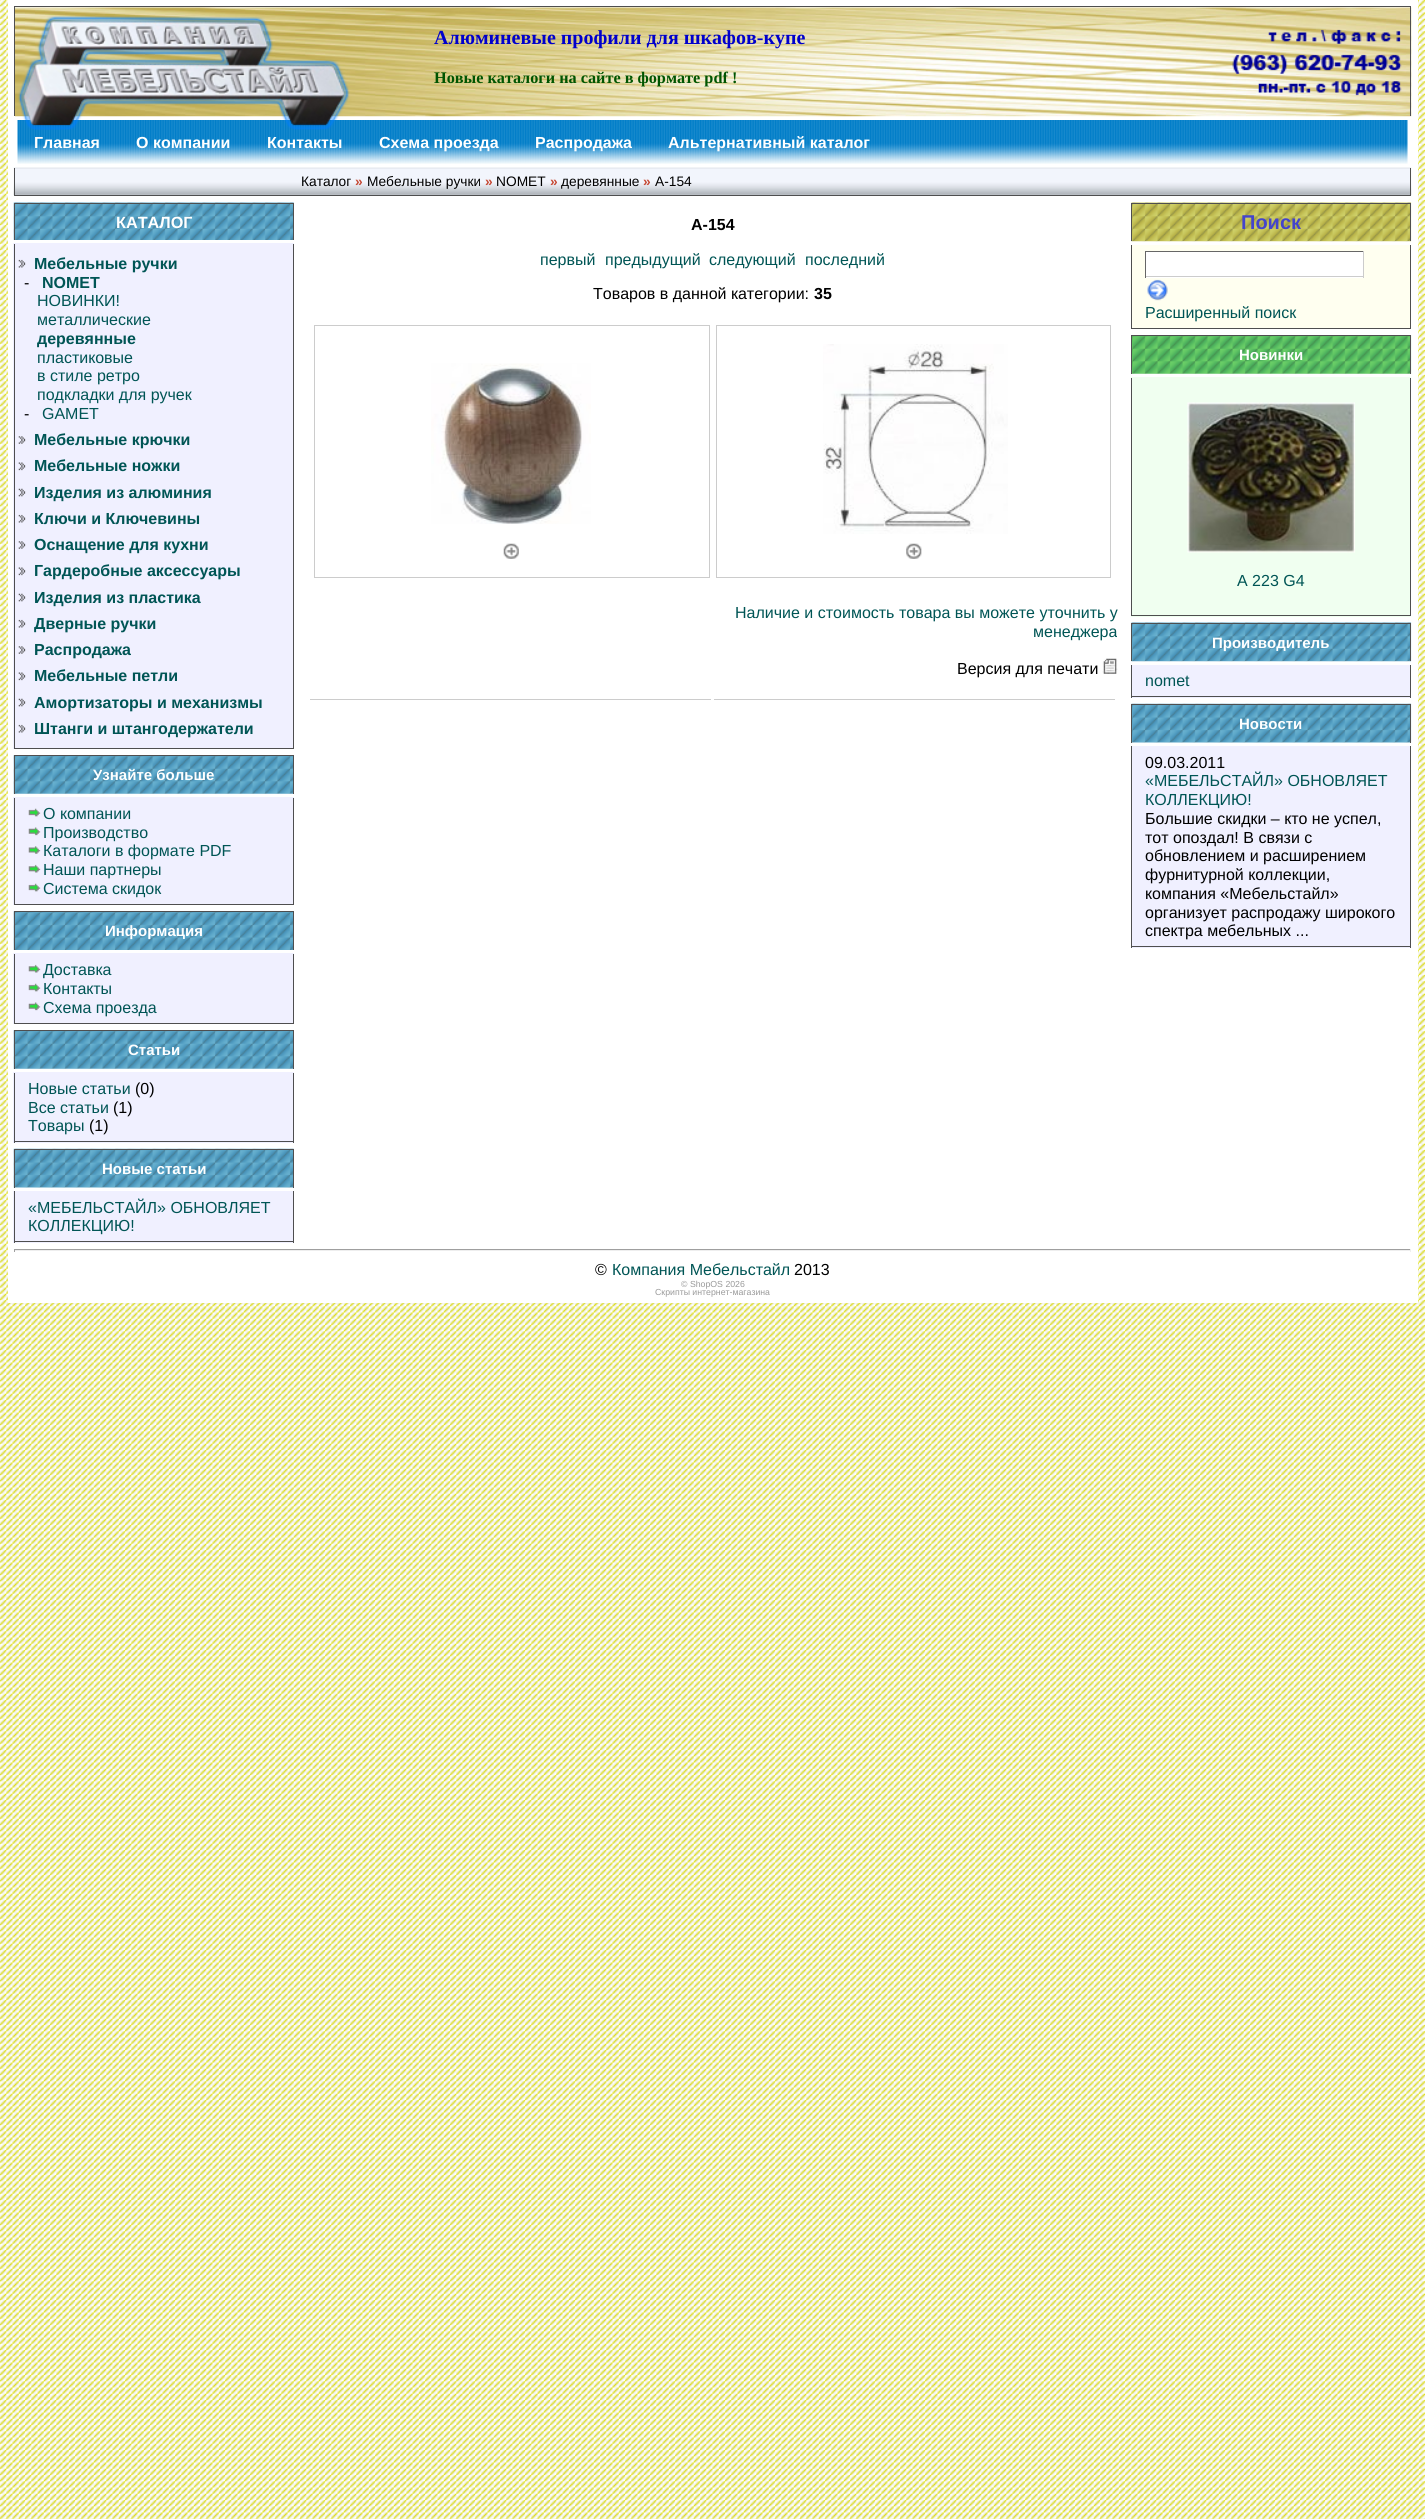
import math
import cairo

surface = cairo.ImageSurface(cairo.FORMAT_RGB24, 1425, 2519)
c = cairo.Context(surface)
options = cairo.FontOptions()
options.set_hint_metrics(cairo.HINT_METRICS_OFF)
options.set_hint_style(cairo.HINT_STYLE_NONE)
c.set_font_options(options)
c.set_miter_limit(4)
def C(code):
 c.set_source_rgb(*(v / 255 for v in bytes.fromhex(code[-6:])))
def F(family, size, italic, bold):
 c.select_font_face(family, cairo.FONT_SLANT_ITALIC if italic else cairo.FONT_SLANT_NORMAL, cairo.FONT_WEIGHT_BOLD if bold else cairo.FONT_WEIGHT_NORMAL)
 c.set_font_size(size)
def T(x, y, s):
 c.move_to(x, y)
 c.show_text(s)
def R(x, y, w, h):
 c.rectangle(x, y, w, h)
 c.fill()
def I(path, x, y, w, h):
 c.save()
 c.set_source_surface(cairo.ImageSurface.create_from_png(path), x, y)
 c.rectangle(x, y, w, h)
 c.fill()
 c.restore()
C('ffffff')
c.paint()
I('1.png',0,0,1425,2519)
C('ffffff')
R(8,0,1410,1303)
I('2.png',15,7,1397,110)
C('4e4e4f')
R(14,6,1397,1)
R(1410,6,1,110)
R(14,6,1,110)
I('5.png',17,120,1391,44)
I('3.png',18,16,332,114)
F('Liberation Serif',20,0,1)
C('0000cc')
T(434,44,'Алюминевые профили для шкафов-купе')
F('Liberation Serif',16.25,0,1)
C('005500')
T(434,83,'Новые каталоги на сайте в формате pdf !')
I('4.png',1232,29,170,67)
F('Liberation Sans',16,0,1)
C('ffffff')
T(34,148,'Главная')
T(136,148,'О компании')
T(267,148,'Контакты')
T(379,148,'Схема проезда')
T(535,148,'Распродажа')
T(668,148,'Альтернативный каталог')
I('6.png',13,167,1399,29)
C('4e4e4f')
R(1410,168,1,28)
R(14,195,1397,1)
R(14,168,1,28)
F('Liberation Sans',13.75,0,0)
C('000000')
T(301,186,'Каталог')
F('Liberation Sans',13.75,0,1)
C('c64934')
T(355,186,'»')
F('Liberation Sans',13.75,0,0)
C('000000')
T(367,186,'Мебельные ручки')
F('Liberation Sans',13.75,0,1)
C('c64934')
T(485,186,'»')
F('Liberation Sans',13.75,0,0)
C('000000')
T(496,186,'NOMET')
F('Liberation Sans',13.75,0,1)
C('c64934')
T(550,186,'»')
F('Liberation Sans',13.75,0,0)
C('000000')
T(561,186,'деревянные')
F('Liberation Sans',13.75,0,1)
C('c64934')
T(643,186,'»')
F('Liberation Sans',13.75,0,0)
C('000000')
T(655,186,'A-154')
I('7.png',13,202,281,38)
C('4e4e4f')
R(14,203,280,1)
R(293,203,1,37)
R(14,203,1,37)
F('Liberation Sans',16.25,0,1)
C('ffffff')
T(116,228,'КАТАЛОГ')
C('f0f0ff')
R(13,243,281,506)
C('4e4e4f')
R(293,244,1,505)
R(14,748,280,1)
R(14,244,1,505)
I('8.png',18,259,8,9)
F('Liberation Sans',16,0,1)
C('005555')
T(34,269,'Мебельные ручки')
F('Liberation Sans',16,0,0)
C('000000')
T(24,288,'-')
F('Liberation Sans',16,0,1)
C('005555')
T(42,288,'NOMET')
F('Liberation Sans',16,0,0)
T(37,306,'НОВИНКИ!')
T(37,325,'металлические')
F('Liberation Sans',16,0,1)
T(37,344,'деревянные')
F('Liberation Sans',16,0,0)
T(37,363,'пластиковые')
T(37,381,'в стиле ретро')
T(37,400,'подкладки для ручек')
C('000000')
T(24,419,'-')
C('005555')
T(42,419,'GAMET')
I('9.png',18,436,8,8)
F('Liberation Sans',16,0,1)
T(34,445,'Мебельные крючки')
I('10.png',18,462,8,9)
T(34,471,'Мебельные ножки')
I('11.png',18,488,8,9)
T(34,498,'Изделия из алюминия')
I('8.png',18,514,8,9)
T(34,524,'Ключи и Ключевины')
I('9.png',18,541,8,8)
T(34,550,'Оснащение для кухни')
I('10.png',18,567,8,9)
T(34,576,'Гардеробные аксессуары')
I('11.png',18,593,8,9)
T(34,603,'Изделия из пластика')
I('8.png',18,619,8,9)
T(34,629,'Дверные ручки')
I('9.png',18,646,8,8)
T(34,655,'Распродажа')
I('10.png',18,672,8,9)
T(34,681,'Мебельные петли')
I('11.png',18,698,8,9)
T(34,708,'Амортизаторы и механизмы')
I('8.png',18,724,8,9)
T(34,734,'Штанги и штангодержатели')
I('12.png',13,755,280,39)
C('4e4e4f')
R(14,755,280,1)
R(293,755,1,39)
R(14,755,1,39)
F('Liberation Sans',15,0,1)
C('ffffff')
T(93,780,'Узнайте больше')
C('f0f0ff')
R(13,797,281,108)
C('4e4e4f')
R(293,798,1,107)
R(14,904,280,1)
R(14,798,1,107)
I('13.png',28,808,13,9)
F('Liberation Sans',16,0,0)
C('005555')
T(43,819,'О компании')
I('14.png',28,827,13,9)
T(43,838,'Производство')
I('15.png',28,846,13,8)
T(43,856,'Каталоги в формате PDF')
I('16.png',28,864,13,9)
T(43,875,'Наши партнеры')
I('13.png',28,883,13,9)
T(43,894,'Система скидок')
I('17.png',13,911,280,39)
C('4e4e4f')
R(14,911,280,1)
R(293,911,1,39)
R(14,911,1,39)
F('Liberation Sans',15,0,1)
C('ffffff')
T(105,936,'Информация')
C('f0f0ff')
R(13,953,281,71)
C('4e4e4f')
R(293,954,1,70)
R(14,1023,280,1)
R(14,954,1,70)
I('16.png',28,964,13,9)
F('Liberation Sans',16,0,0)
C('005555')
T(43,975,'Доставка')
I('13.png',28,983,13,9)
T(43,994,'Контакты')
I('14.png',28,1002,13,9)
T(43,1013,'Схема проезда')
I('12.png',13,1030,280,39)
C('4e4e4f')
R(14,1030,280,1)
R(293,1030,1,39)
R(14,1030,1,39)
F('Liberation Sans',15,0,1)
C('ffffff')
T(128,1055,'Статьи')
C('f0f0ff')
R(13,1072,281,71)
C('4e4e4f')
R(293,1073,1,70)
R(14,1141,280,1)
R(14,1073,1,70)
F('Liberation Sans',16,0,0)
C('005555')
T(28,1094,'Новые статьи')
C('000000')
T(135,1094,'(0)')
C('005555')
T(28,1113,'Все статьи')
C('000000')
T(113,1113,'(1)')
C('005555')
T(28,1131,'Товары')
C('000000')
T(89,1131,'(1)')
I('18.png',13,1148,281,40)
C('4e4e4f')
R(14,1149,280,1)
R(293,1149,1,39)
R(14,1149,1,39)
F('Liberation Sans',15,0,1)
C('ffffff')
T(102,1174,'Новые статьи')
C('f0f0ff')
R(13,1191,280,52)
C('4e4e4f')
R(293,1191,1,52)
R(14,1241,280,1)
R(14,1191,1,52)
F('Liberation Sans',16,0,0)
C('005555')
T(28,1213,'«МЕБЕЛЬСТАЙЛ» ОБНОВЛЯЕТ')
T(28,1231,'КОЛЛЕКЦИЮ!')
F('Liberation Sans',16,0,1)
C('000000')
T(691,230,'A-154')
F('Liberation Sans',16,0,0)
C('005555')
T(540,265,'первый')
T(605,265,'предыдущий')
T(709,265,'следующий')
T(805,265,'последний')
C('000000')
T(593,299,'Товаров в данной категории:')
F('Liberation Sans',16,0,1)
T(814,299,'35')
c.rectangle(314.5,325.5,395,252)
C('cccccc')
c.set_line_width(1)
c.stroke()
I('19.png',431,363,160,161)
I('20.png',503,543,16,16)
c.rectangle(716.5,325.5,394,252)
c.stroke()
I('21.png',823,344,185,190)
I('22.png',906,543,16,16)
F('Liberation Sans',16,0,0)
C('005555')
T(735,618,'Наличие и стоимость товара вы можете уточнить у')
T(1033,637,'менеджера')
C('000000')
T(957,674,'Версия для печати')
I('23.png',1102,658,16,16)
C('cccccc')
R(310,699,401,1)
R(714,699,401,1)
I('24.png',1131,202,281,40)
C('4e4e4f')
R(1131,203,280,1)
R(1410,203,1,38)
R(1131,203,1,38)
F('Liberation Sans',20,0,1)
C('4444cc')
T(1241,229,'Поиск')
C('fffff0')
R(1132,245,278,83)
C('4e4e4f')
R(1410,245,1,84)
R(1131,328,280,1)
R(1131,245,1,84)
C('ffffff')
R(1146,252,217,26)
C('666666')
R(1145,251,219,1)
C('cccccc')
R(1363,251,1,27)
R(1145,276,219,1)
C('666666')
R(1145,251,1,27)
I('25.png',1147,279,21,22)
F('Liberation Sans',16,0,0)
C('005555')
T(1145,318,'Расширенный поиск')
I('26.png',1132,335,280,39)
C('4e4e4f')
R(1131,335,280,1)
R(1410,335,1,39)
R(1131,335,1,39)
F('Liberation Sans',15,0,1)
C('ffffff')
T(1239,360,'Новинки')
C('f0fff0')
R(1131,377,280,240)
C('4e4e4f')
R(1410,378,1,238)
R(1131,615,280,1)
R(1131,378,1,238)
I('27.png',1187,402,168,151)
F('Liberation Sans',16,0,0)
C('005555')
T(1237,586,'A 223 G4')
I('28.png',1131,622,281,40)
C('4e4e4f')
R(1131,623,280,1)
R(1410,623,1,38)
R(1131,623,1,38)
F('Liberation Sans',15,0,1)
C('ffffff')
T(1212,648,'Производитель')
C('f0f0ff')
R(1132,665,278,33)
C('4e4e4f')
R(1410,665,1,33)
R(1131,696,280,1)
R(1131,665,1,33)
F('Liberation Sans',16,0,0)
C('005555')
T(1145,686,'nomet')
I('29.png',1131,703,281,40)
C('4e4e4f')
R(1131,704,280,1)
R(1410,704,1,39)
R(1131,704,1,39)
F('Liberation Sans',15,0,1)
C('ffffff')
T(1239,729,'Новости')
C('f0f0ff')
R(1132,746,278,202)
C('4e4e4f')
R(1410,746,1,202)
R(1131,946,280,1)
R(1131,746,1,202)
F('Liberation Sans',16,0,0)
C('000000')
T(1145,768,'09.03.2011')
C('005555')
T(1145,786,'«МЕБЕЛЬСТАЙЛ» ОБНОВЛЯЕТ')
T(1145,805,'КОЛЛЕКЦИЮ!')
C('000000')
T(1145,824,'Большие скидки – кто не успел,')
T(1145,843,'тот опоздал! В связи с')
T(1145,861,'обновлением и расширением')
T(1145,880,'фурнитурной коллекции,')
T(1145,899,'компания «Мебельстайл»')
T(1145,918,'организует распродажу широкого')
T(1145,936,'спектра мебельных ...')
C('9f9f9f')
R(14,1249,1397,1)
C('eeeeee')
R(1410,1249,1,3)
R(14,1250,1397,1)
C('9f9f9f')
R(14,1249,1,3)
C('000000')
T(595,1275,'©')
C('005555')
T(612,1275,'Компания Мебельстайл')
C('000000')
T(794,1275,'2013')
F('Liberation Sans',8.75,0,0)
C('999999')
T(681,1287,'© ShopOS 2026')
T(655,1295,'Скрипты интернет-магазина')
surface.write_to_png('o.png')
